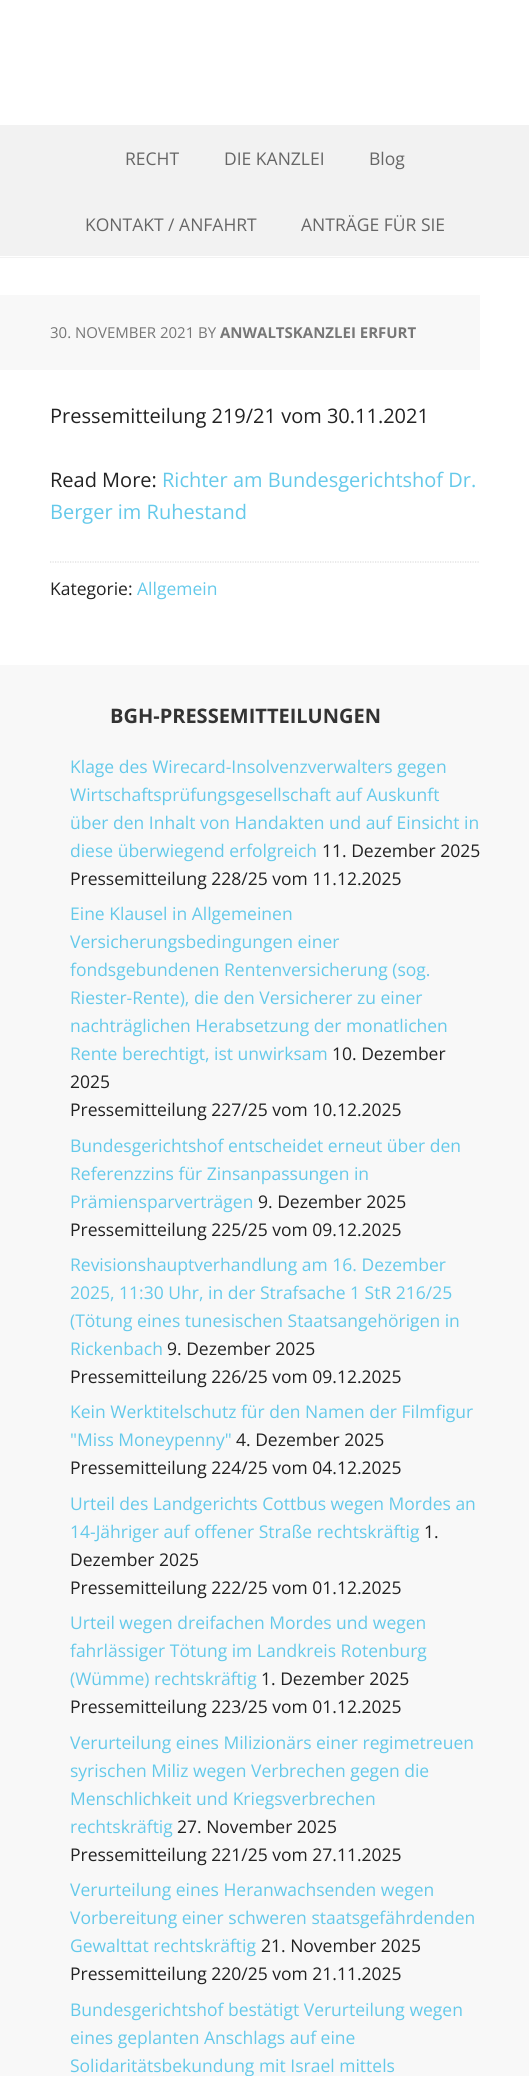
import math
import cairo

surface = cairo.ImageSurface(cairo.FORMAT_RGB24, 529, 2076)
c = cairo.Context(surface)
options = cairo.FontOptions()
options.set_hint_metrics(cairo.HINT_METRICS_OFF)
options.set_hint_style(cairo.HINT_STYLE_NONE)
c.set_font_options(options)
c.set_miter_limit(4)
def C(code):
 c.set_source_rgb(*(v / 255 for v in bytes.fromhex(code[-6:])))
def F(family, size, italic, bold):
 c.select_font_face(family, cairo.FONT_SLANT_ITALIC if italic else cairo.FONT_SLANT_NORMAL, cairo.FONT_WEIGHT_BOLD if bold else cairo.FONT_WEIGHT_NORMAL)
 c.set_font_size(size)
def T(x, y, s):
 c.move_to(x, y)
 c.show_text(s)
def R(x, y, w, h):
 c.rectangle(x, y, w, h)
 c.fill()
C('ffffff')
c.paint()
C('f2f2f2')
R(0,125,529,133)
F('Open Sans',17.5,0,0)
C('666666')
T(125,165,'RECHT')
T(224,165,'DIE KANZLEI')
T(369,165,'Blog')
T(85,231,'KONTAKT / ANFAHRT')
T(301,231,'ANTRÄGE FÜR SIE')
c.rectangle(-.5,256.5,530,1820)
C('ffffff')
c.set_line_width(1)
c.stroke()
C('f8f8f8')
R(0,295,480,75)
F('Open Sans',15,0,0)
C('777777')
T(50,338,'30. NOVEMBER 2021 BY')
F('Open Sans',15,0,1)
T(220,338,'ANWALTSKANZLEI ERFURT')
F('Open Sans',20,0,0)
C('222222')
T(50,423,'Pressemitteilung 219/21 vom 30.11.2021')
T(50,487,'Read More:')
C('64c9ea')
T(162,487,'Richter am Bundesgerichtshof Dr.')
T(50,519,'Berger im Ruhestand')
c.new_path()
c.move_to(50,562)
c.line_to(480,562)
C('dddddd')
c.set_line_width(1.2)
c.set_dash([1.25,1.25])
c.stroke()
F('Open Sans',17.5,0,0)
C('222222')
T(50,595,'Kategorie:')
C('64c9ea')
T(137,595,'Allgemein')
C('f8f8f8')
R(0,665,529,1411)
F('Open Sans',20,0,1)
C('333333')
T(110,723,'BGH-PRESSEMITTEILUNGEN')
F('Open Sans',17.5,0,0)
C('64c9ea')
T(70,773,'Klage des Wirecard-Insolvenzverwalters gegen')
T(70,801,'Wirtschaftsprüfungsgesellschaft auf Auskunft')
T(70,829,'über den Inhalt von Handakten und auf Einsicht in')
T(70,857,'diese überwiegend erfolgreich')
C('222222')
T(322,857,'11. Dezember 2025')
T(70,885,'Pressemitteilung 228/25 vom 11.12.2025')
C('64c9ea')
T(70,920,'Eine Klausel in Allgemeinen')
T(70,948,'Versicherungsbedingungen einer')
T(70,976,'fondsgebundenen Rentenversicherung (sog.')
T(70,1004,'Riester-Rente), die den Versicherer zu einer')
T(70,1032,'nachträglichen Herabsetzung der monatlichen')
T(70,1060,'Rente berechtigt, ist unwirksam')
C('222222')
T(332,1060,'10. Dezember')
T(70,1088,'2025')
T(70,1116,'Pressemitteilung 227/25 vom 10.12.2025')
C('64c9ea')
T(70,1152,'Bundesgerichtshof entscheidet erneut über den')
T(70,1180,'Referenzzins für Zinsanpassungen in')
T(70,1208,'Prämiensparverträgen')
C('222222')
T(258,1208,'9. Dezember 2025')
T(70,1236,'Pressemitteilung 225/25 vom 09.12.2025')
C('64c9ea')
T(70,1271,'Revisionshauptverhandlung am 16. Dezember')
T(70,1299,'2025, 11:30 Uhr, in der Strafsache 1 StR 216/25')
T(70,1327,'(Tötung eines tunesischen Staatsangehörigen in')
T(70,1355,'Rickenbach')
C('222222')
T(167,1355,'9. Dezember 2025')
T(70,1383,'Pressemitteilung 226/25 vom 09.12.2025')
C('64c9ea')
T(70,1418,'Kein Werktitelschutz für den Namen der Filmfigur')
T(70,1446,'"Miss Moneypenny"')
C('222222')
T(236,1446,'4. Dezember 2025')
T(70,1474,'Pressemitteilung 224/25 vom 04.12.2025')
C('64c9ea')
T(70,1510,'Urteil des Landgerichts Cottbus wegen Mordes an')
T(70,1538,'14-Jähriger auf offener Straße rechtskräftig')
C('222222')
T(424,1538,'1.')
T(70,1566,'Dezember 2025')
T(70,1594,'Pressemitteilung 222/25 vom 01.12.2025')
C('64c9ea')
T(70,1629,'Urteil wegen dreifachen Mordes und wegen')
T(70,1657,'fahrlässiger Tötung im Landkreis Rotenburg')
T(70,1685,'(Wümme) rechtskräftig')
C('222222')
T(261,1685,'1. Dezember 2025')
T(70,1713,'Pressemitteilung 223/25 vom 01.12.2025')
C('64c9ea')
T(70,1749,'Verurteilung eines Milizionärs einer regimetreuen')
T(70,1777,'syrischen Miliz wegen Verbrechen gegen die')
T(70,1805,'Menschlichkeit und Kriegsverbrechen')
T(70,1833,'rechtskräftig')
C('222222')
T(177,1833,'27. November 2025')
T(70,1861,'Pressemitteilung 221/25 vom 27.11.2025')
C('64c9ea')
T(70,1896,'Verurteilung eines Heranwachsenden wegen')
T(70,1924,'Vorbereitung einer schweren staatsgefährdenden')
T(70,1952,'Gewalttat rechtskräftig')
C('222222')
T(261,1952,'21. November 2025')
T(70,1980,'Pressemitteilung 220/25 vom 21.11.2025')
C('64c9ea')
T(70,2016,'Bundesgerichtshof bestätigt Verurteilung wegen')
T(70,2044,'eines geplanten Anschlags auf eine')
T(70,2072,'Solidaritätsbekundung mit Israel mittels')
surface.write_to_png('o.png')
